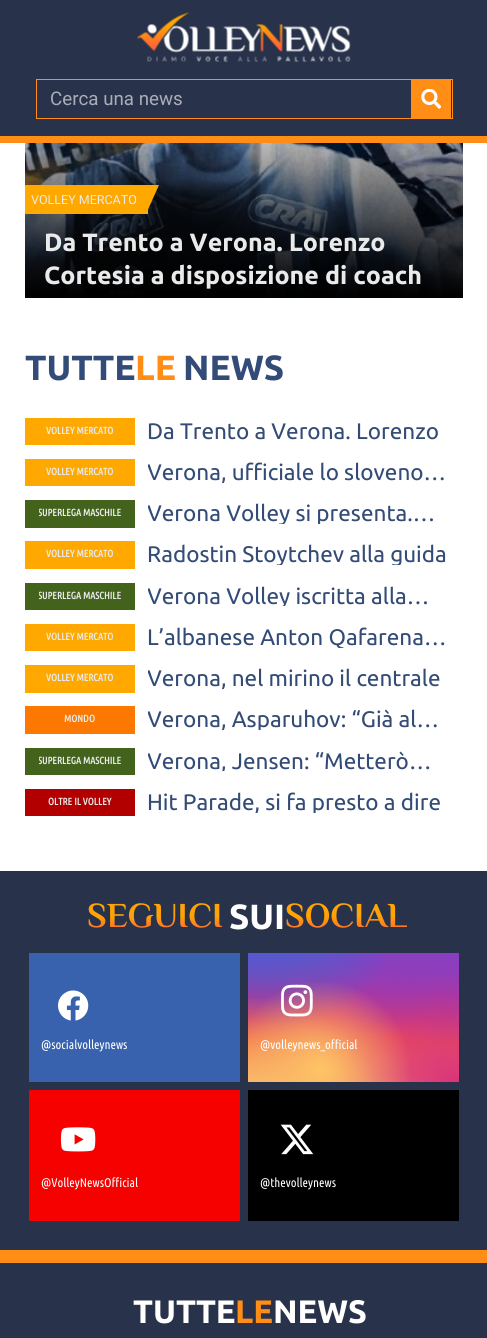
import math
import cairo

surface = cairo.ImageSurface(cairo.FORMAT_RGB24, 487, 1338)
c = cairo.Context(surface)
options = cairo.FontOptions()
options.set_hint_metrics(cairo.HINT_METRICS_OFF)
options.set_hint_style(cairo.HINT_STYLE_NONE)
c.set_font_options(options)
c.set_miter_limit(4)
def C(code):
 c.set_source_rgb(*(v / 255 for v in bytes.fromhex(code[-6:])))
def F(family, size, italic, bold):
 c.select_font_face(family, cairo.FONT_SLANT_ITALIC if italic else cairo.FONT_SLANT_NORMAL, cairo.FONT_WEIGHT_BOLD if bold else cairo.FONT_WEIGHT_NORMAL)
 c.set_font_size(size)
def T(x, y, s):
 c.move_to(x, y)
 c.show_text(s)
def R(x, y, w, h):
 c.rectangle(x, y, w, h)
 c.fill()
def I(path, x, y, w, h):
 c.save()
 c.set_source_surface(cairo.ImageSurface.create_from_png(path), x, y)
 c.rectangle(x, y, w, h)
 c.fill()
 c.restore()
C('ffffff')
c.paint()
C('28334b')
R(0,0,487,136)
C('ff8d16')
R(0,136,487,7)
I('1.png',137,12,214,50)
c.rectangle(36.5,79.5,416,39)
c.set_line_width(1)
c.stroke()
F('Roboto',18.75,0,0)
C('a9adb7')
T(50,105,'Cerca una news')
C('ff8d16')
R(411,80,40,38)
I('2.png',421,89,20,20)
I('3.png',25,143,438,154)
gradient = cairo.LinearGradient(244,-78,244,298)
gradient.add_color_stop_rgba(.44,0,0,0,0)
gradient.add_color_stop_rgba(1,0,0,0,1)
c.set_source(gradient)
R(25,143,438,155)
C('ffa800')
R(25,185,123,29)
F('Roboto',12.5,0,0)
C('eaeaea')
T(31,204,'VOLLEY MERCATO')
C('ffa800')
c.new_path()
c.move_to(146,185)
c.line_to(159,185)
c.line_to(146,214)
c.close_path()
c.fill()
F('Ubuntu',25,0,1)
C('eaeaea')
T(44,251,'Da Trento a Verona. Lorenzo')
T(44,284,'Cortesia a disposizione di coach')
F('Ubuntu',35,0,1)
C('334b77')
T(25,380,'TUTTE')
C('ff8d16')
T(135,380,'LE')
C('334b77')
T(183,380,'NEWS')
C('ffa800')
R(25,418,110,27)
F('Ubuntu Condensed',10,0,1)
C('eaeaea')
T(46,434,'VOLLEY MERCATO')
F('Ubuntu',22.5,0,0)
C('334b77')
T(147,439,'Da Trento a Verona. Lorenzo')
C('ffa800')
R(25,459,110,27)
F('Ubuntu Condensed',10,0,1)
C('eaeaea')
T(46,475,'VOLLEY MERCATO')
c.save()
c.rectangle(148,460,311,23)
c.clip()
F('Ubuntu',22.5,0,0)
C('334b77')
T(147,480,'Verona, ufficiale lo sloveno…')
c.restore()
C('43631d')
R(25,500,110,28)
c.save()
c.rectangle(39,506,82,15)
c.clip()
C('eaeaea')
T(38,516,'SUPERLEGA MASCHILE')
c.restore()
c.save()
c.rectangle(148,501,311,23)
c.clip()
F('Ubuntu',22.5,0,0)
C('334b77')
T(147,521,'Verona Volley si presenta.…')
c.restore()
C('ffa800')
R(25,541,110,28)
C('eaeaea')
T(46,557,'VOLLEY MERCATO')
c.save()
c.rectangle(148,543,311,22)
c.clip()
F('Ubuntu',22.5,0,0)
C('334b77')
T(147,562,'Radostin Stoytchev alla guida')
c.restore()
C('43631d')
R(25,583,110,27)
c.save()
c.rectangle(39,589,82,15)
c.clip()
C('eaeaea')
T(38,599,'SUPERLEGA MASCHILE')
c.restore()
c.save()
c.rectangle(148,584,311,22)
c.clip()
F('Ubuntu',22.5,0,0)
C('334b77')
T(147,604,'Verona Volley iscritta alla…')
c.restore()
C('ffa800')
R(25,624,110,27)
C('eaeaea')
T(46,640,'VOLLEY MERCATO')
c.save()
c.rectangle(148,625,311,23)
c.clip()
F('Ubuntu',22.5,0,0)
C('334b77')
T(147,645,'L’albanese Anton Qafarena…')
c.restore()
C('ffa800')
R(25,665,110,28)
C('eaeaea')
T(46,681,'VOLLEY MERCATO')
c.save()
c.rectangle(148,666,311,23)
c.clip()
F('Ubuntu',22.5,0,0)
C('334b77')
T(147,686,'Verona, nel mirino il centrale')
c.restore()
C('fc7800')
R(25,706,110,28)
C('eaeaea')
T(64,722,'MONDO')
c.save()
c.rectangle(148,708,311,22)
c.clip()
F('Ubuntu',22.5,0,0)
C('334b77')
T(147,727,'Verona, Asparuhov: “Già al…')
c.restore()
C('43631d')
R(25,748,110,27)
c.save()
c.rectangle(39,754,82,15)
c.clip()
C('eaeaea')
T(38,764,'SUPERLEGA MASCHILE')
c.restore()
c.save()
c.rectangle(148,749,311,22)
c.clip()
F('Ubuntu',22.5,0,0)
C('334b77')
T(147,769,'Verona, Jensen: “Metterò…')
c.restore()
C('b20000')
R(25,789,110,27)
C('eaeaea')
T(48,805,'OLTRE IL VOLLEY')
c.save()
c.rectangle(148,790,311,23)
c.clip()
F('Ubuntu',22.5,0,0)
C('334b77')
T(147,810,'Hit Parade, si fa presto a dire')
c.restore()
C('28334b')
R(0,871,487,379)
F('Philosopher',35,0,1)
gradient = cairo.LinearGradient(158,896,158,936)
gradient.add_color_stop_rgba(.5,1,0.643,0.016,1)
gradient.add_color_stop_rgba(.8,1,0.455,0.161,1)
c.set_source(gradient)
T(87,927,'SEGUICI')
F('Ubuntu',35,0,1)
C('ffffff')
T(229,929,'SUI')
F('Philosopher',35,0,1)
gradient = cairo.LinearGradient(349,896,349,936)
gradient.add_color_stop_rgba(.5,1,0.643,0.016,1)
gradient.add_color_stop_rgba(.8,1,0.455,0.161,1)
c.set_source(gradient)
T(285,927,'SOCIAL')
C('3861ae')
R(29,953,211,129)
I('4.png',58,990,31,31)
F('Ubuntu Condensed',12.5,0,0)
C('ffffff')
T(41,1049,'@socialvolleynews')
gradient = cairo.LinearGradient(353,953,353,1083)
gradient.add_color_stop_rgba(0,0.396,0.349,0.792,1)
gradient.add_color_stop_rgba(.3,0.737,0.192,0.561,1)
gradient.add_color_stop_rgba(.5,0.89,0.247,0.373,1)
gradient.add_color_stop_rgba(.7,0.969,0.463,0.22,1)
gradient.add_color_stop_rgba(1,0.996,0.776,0.427,1)
c.set_source(gradient)
R(248,953,211,129)
gradient = cairo.RadialGradient(0,0,0,0,0,1)
gradient.set_matrix(cairo.Matrix(1 / 299, 0, 0, 1 / 184, -1 * 459 / 299, -1 * 1083 / 184))
gradient.add_color_stop_rgba(0,0.851,0.192,0.478,1)
gradient.add_color_stop_rgba(1,0.851,0.192,0.478,0)
c.set_source(gradient)
R(248,953,211,129)
gradient = cairo.RadialGradient(0,0,0,0,0,1)
gradient.set_matrix(cairo.Matrix(1 / 179, 0, 0, 1 / 221, -1 * 374 / 179, -1 * 927 / 221))
gradient.add_color_stop_rgba(0,0.537,0.239,0.761,1)
gradient.add_color_stop_rgba(.5,0.537,0.239,0.761,0)
c.set_source(gradient)
R(298,953,154,82)
gradient = cairo.RadialGradient(0,0,0,0,0,1)
gradient.set_matrix(cairo.Matrix(1 / 299, 0, 0, 1 / 184, -1 * 459 / 299, -1 * 953 / 184))
gradient.add_color_stop_rgba(0,0.537,0.239,0.761,1)
gradient.add_color_stop_rgba(.5,0.537,0.239,0.761,0)
c.set_source(gradient)
R(325,953,134,89)
gradient = cairo.RadialGradient(0,0,0,0,0,1)
gradient.set_matrix(cairo.Matrix(1 / 239, 0, 0, 1 / 276, -1 * 290 / 239, -1 * 888 / 276))
gradient.add_color_stop_rgba(0,0.322,0.345,0.812,1)
gradient.add_color_stop_rgba(.5,0.322,0.345,0.812,0)
c.set_source(gradient)
R(248,953,142,70)
gradient = cairo.RadialGradient(0,0,0,0,0,1)
gradient.set_matrix(cairo.Matrix(1 / 299, 0, 0, 1 / 230, -1 * 248 / 299, -1 * 920 / 230))
gradient.add_color_stop_rgba(0,0.322,0.345,0.812,1)
gradient.add_color_stop_rgba(.5,0.322,0.345,0.812,0)
c.set_source(gradient)
R(248,953,137,80)
gradient = cairo.RadialGradient(248,1135,0,248,1135,279)
gradient.add_color_stop_rgba(0,0.996,0.773,0.392,1)
gradient.add_color_stop_rgba(.5,0.996,0.773,0.392,0)
c.set_source(gradient)
R(248,999,125,83)
gradient = cairo.RadialGradient(321,1070,0,321,1070,180)
gradient.add_color_stop_rgba(0,0.996,0.773,0.392,1)
gradient.add_color_stop_rgba(.5,0.996,0.773,0.392,0)
c.set_source(gradient)
R(248,982,161,100)
I('5.png',281,984,32,33)
C('ffffff')
T(260,1049,'@volleynews_official')
C('f60000')
R(29,1090,211,131)
I('6.png',60,1127,36,25)
C('ffffff')
T(41,1187,'@VolleyNewsOfficial')
C('000000')
R(248,1090,211,131)
I('7.png',280,1124,34,31)
C('ffffff')
T(260,1187,'@thevolleynews')
C('28334b')
R(0,1263,487,75)
C('ff8d16')
R(0,1250,487,13)
F('Ubuntu',32.5,0,1)
C('ffffff')
T(133,1323,'TUTTE')
C('ff8d16')
T(235,1323,'LE')
C('ffffff')
T(273,1323,'NEWS')
surface.write_to_png('o.png')
